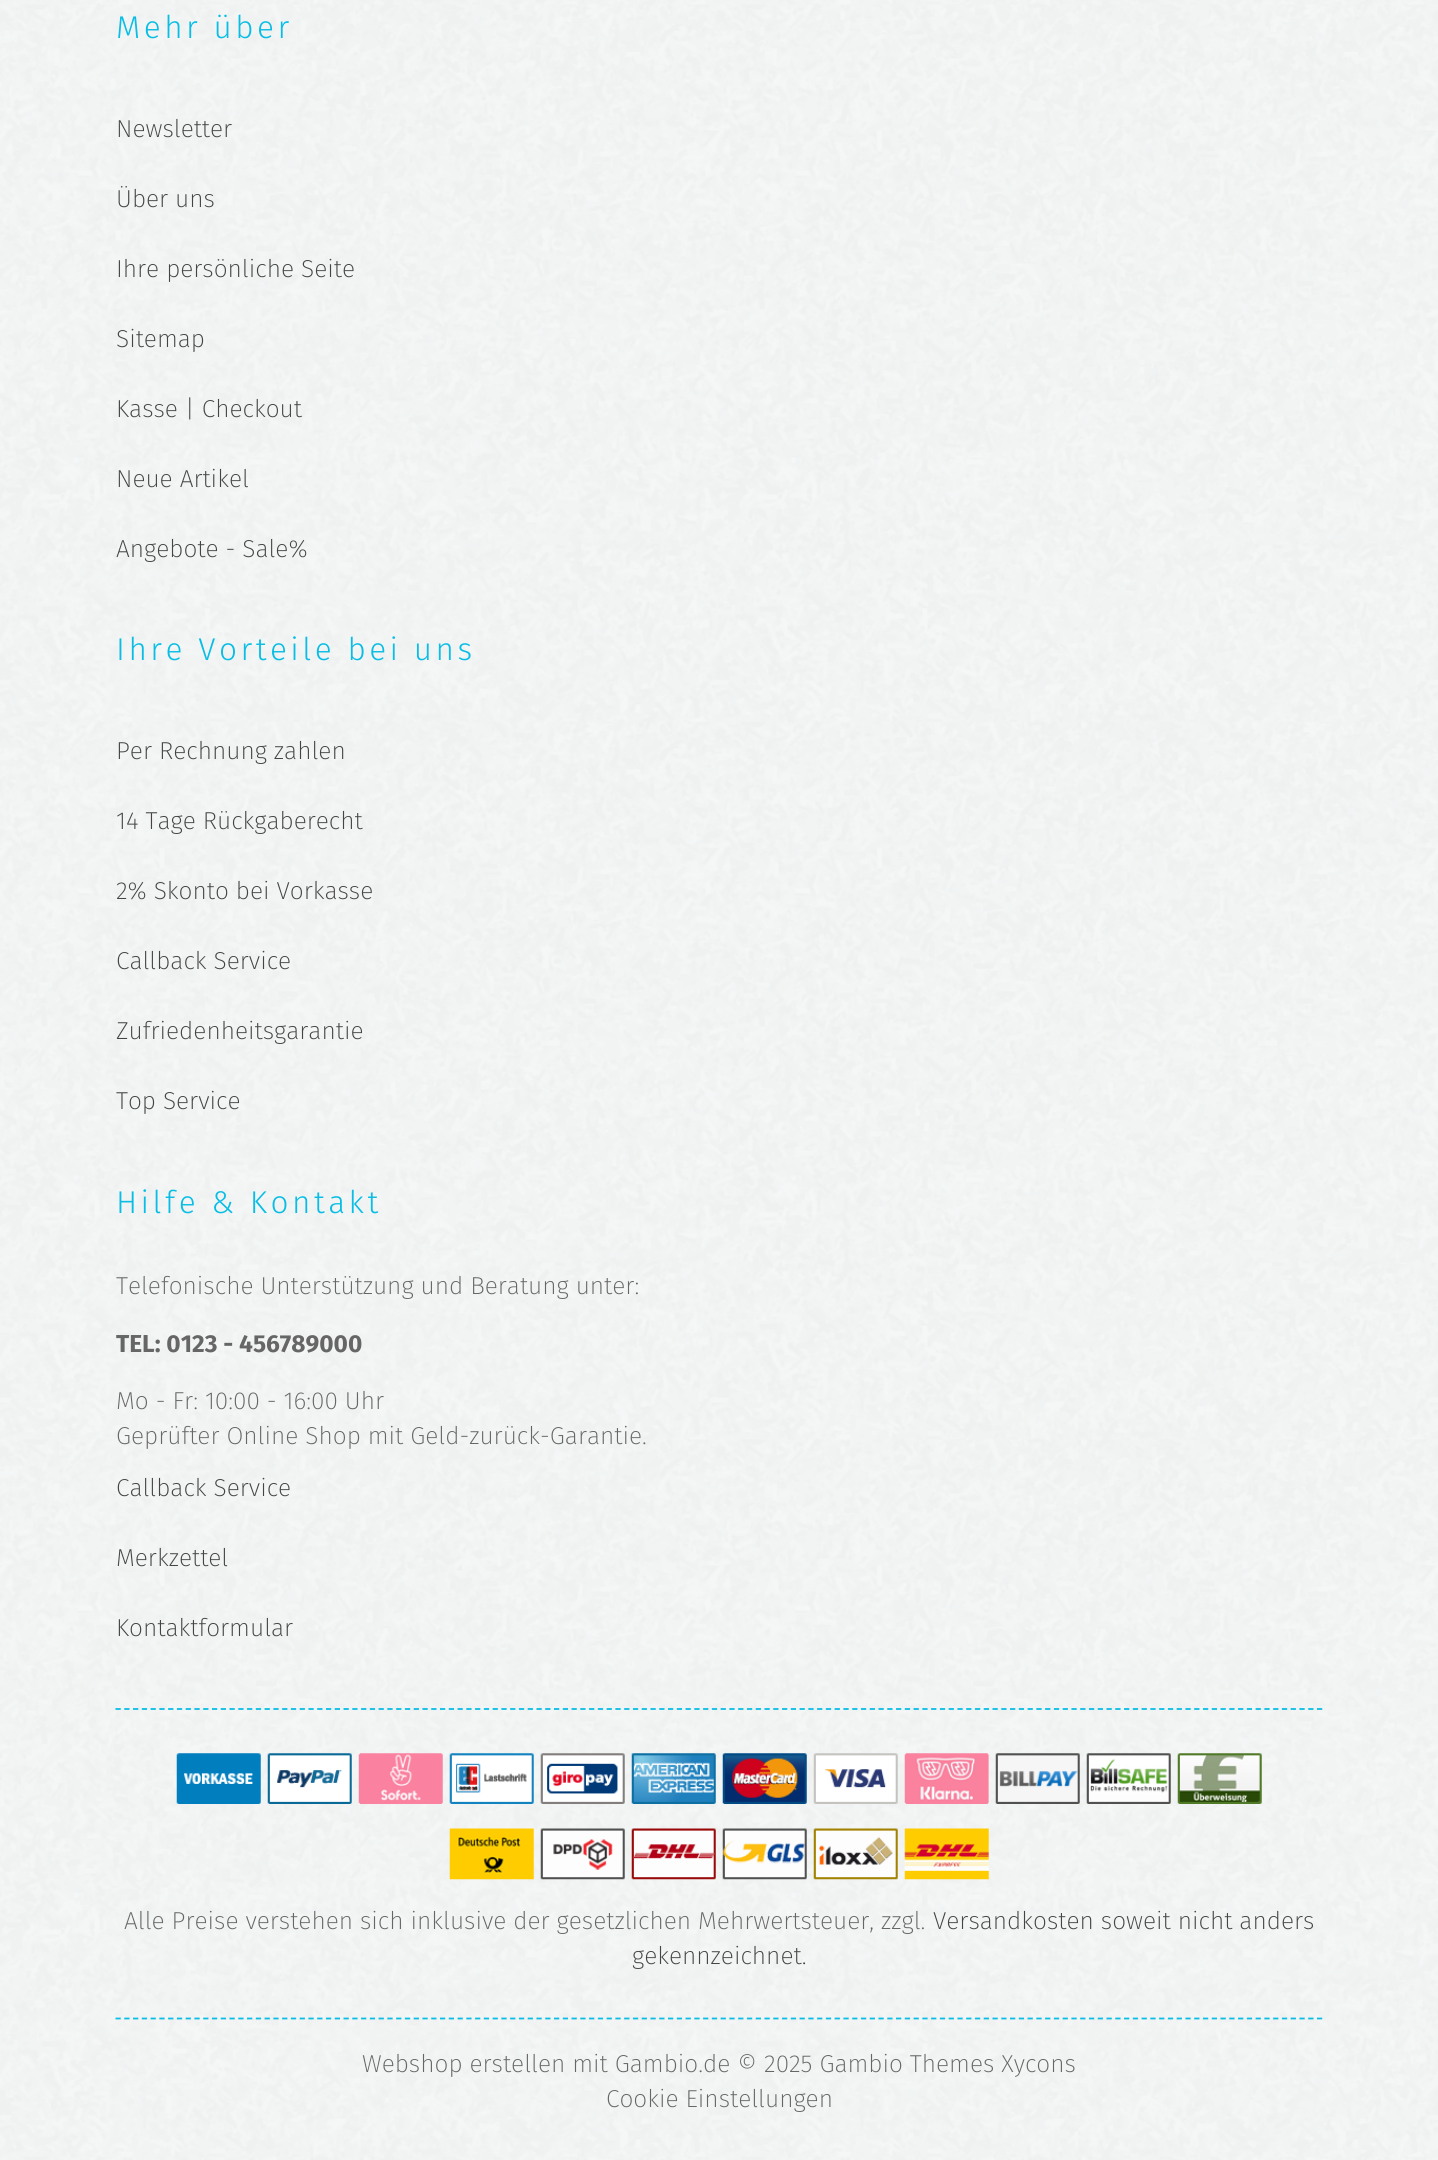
import math
import cairo

surface = cairo.ImageSurface(cairo.FORMAT_RGB24, 1438, 2160)
c = cairo.Context(surface)
options = cairo.FontOptions()
options.set_hint_metrics(cairo.HINT_METRICS_OFF)
options.set_hint_style(cairo.HINT_STYLE_NONE)
c.set_font_options(options)
c.set_miter_limit(4)
def C(code):
 c.set_source_rgb(*(v / 255 for v in bytes.fromhex(code[-6:])))
def F(family, size, italic, bold):
 c.select_font_face(family, cairo.FONT_SLANT_ITALIC if italic else cairo.FONT_SLANT_NORMAL, cairo.FONT_WEIGHT_BOLD if bold else cairo.FONT_WEIGHT_NORMAL)
 c.set_font_size(size)
def T(x, y, s):
 c.move_to(x, y)
 c.show_text(s)
def L(x, y, s, letter, word):
 c.move_to(x, y)
 for ch in s:
  c.show_text(ch)
  c.rel_move_to(letter + word * (ch == ' '), 0)
def I(path, x, y, w, h):
 c.save()
 c.set_source_surface(cairo.ImageSurface.create_from_png(path), x, y)
 c.rectangle(x, y, w, h)
 c.fill()
 c.restore()
C('ffffff')
c.paint()
I('1.png',0,0,1438,2160)
I('2.png',63,0,1313,2160)
F('Fira Sans Light',31.5,0,0)
C('09bde4')
L(116,38,'Mehr über',3.5,0)
F('Fira Sans ExtraLight',24.5,0,0)
C('444444')
T(116,137,'Newsletter')
T(116,207,'Über uns')
T(116,277,'Ihre persönliche Seite')
T(116,347,'Sitemap')
T(116,417,'Kasse | Checkout')
T(116,487,'Neue Artikel')
T(116,557,'Angebote - Sale%')
F('Fira Sans Light',31.5,0,0)
C('09bde4')
L(116,660,'Ihre Vorteile bei uns',3.5,0)
F('Fira Sans ExtraLight',24.5,0,0)
C('444444')
T(116,759,'Per Rechnung zahlen')
T(116,829,'14 Tage Rückgaberecht')
T(116,899,'2% Skonto bei Vorkasse')
T(116,969,'Callback Service')
T(116,1039,'Zufriedenheitsgarantie')
T(116,1109,'Top Service')
F('Fira Sans Light',31.5,0,0)
C('09bde4')
L(116,1213,'Hilfe & Kontakt',3.5,0)
F('Fira Sans ExtraLight',24.5,0,0)
C('666666')
T(116,1294,'Telefonische Unterstützung und Beratung unter:')
F('Fira Sans',24.5,0,1)
T(116,1352,'TEL: 0123 - 456789000')
F('Fira Sans ExtraLight',24.5,0,0)
T(116,1409,'Mo - Fr: 10:00 - 16:00 Uhr')
T(116,1444,'Geprüfter Online Shop mit Geld-zurück-Garantie.')
C('444444')
T(116,1496,'Callback Service')
T(116,1566,'Merkzettel')
T(116,1636,'Kontaktformular')
c.new_path()
c.move_to(115.5,1709)
c.line_to(1323,1709)
C('09bde4')
c.set_line_width(1.8)
c.set_dash([5.25,3.52])
c.stroke()
I('3.png',176,1753,85,51)
I('4.png',267,1753,85,51)
I('5.png',358,1753,85,51)
I('6.png',449,1753,85,51)
I('7.png',540,1753,85,51)
I('8.png',631,1753,85,51)
I('9.png',722,1753,85,51)
I('10.png',813,1753,85,51)
I('11.png',904,1753,85,51)
I('12.png',995,1753,85,51)
I('13.png',1086,1753,85,51)
I('14.png',1177,1753,85,51)
I('15.png',449,1828,85,52)
I('16.png',540,1828,85,52)
I('17.png',631,1828,85,52)
I('18.png',722,1828,85,52)
I('19.png',813,1828,85,52)
I('20.png',904,1828,85,52)
C('666666')
T(124,1929,'Alle Preise verstehen sich inklusive der gesetzlichen Mehrwertsteuer, zzgl.')
C('444444')
T(933,1929,'Versandkosten soweit nicht anders')
T(632,1964,'gekennzeichnet.')
c.new_path()
c.move_to(115.5,2018.5)
c.line_to(1323,2018.5)
C('09bde4')
c.stroke()
C('666666')
T(362,2072,'Webshop erstellen mit Gambio.de © 2025 Gambio Themes Xycons')
T(606,2107,'Cookie Einstellungen')
surface.write_to_png('o.png')
